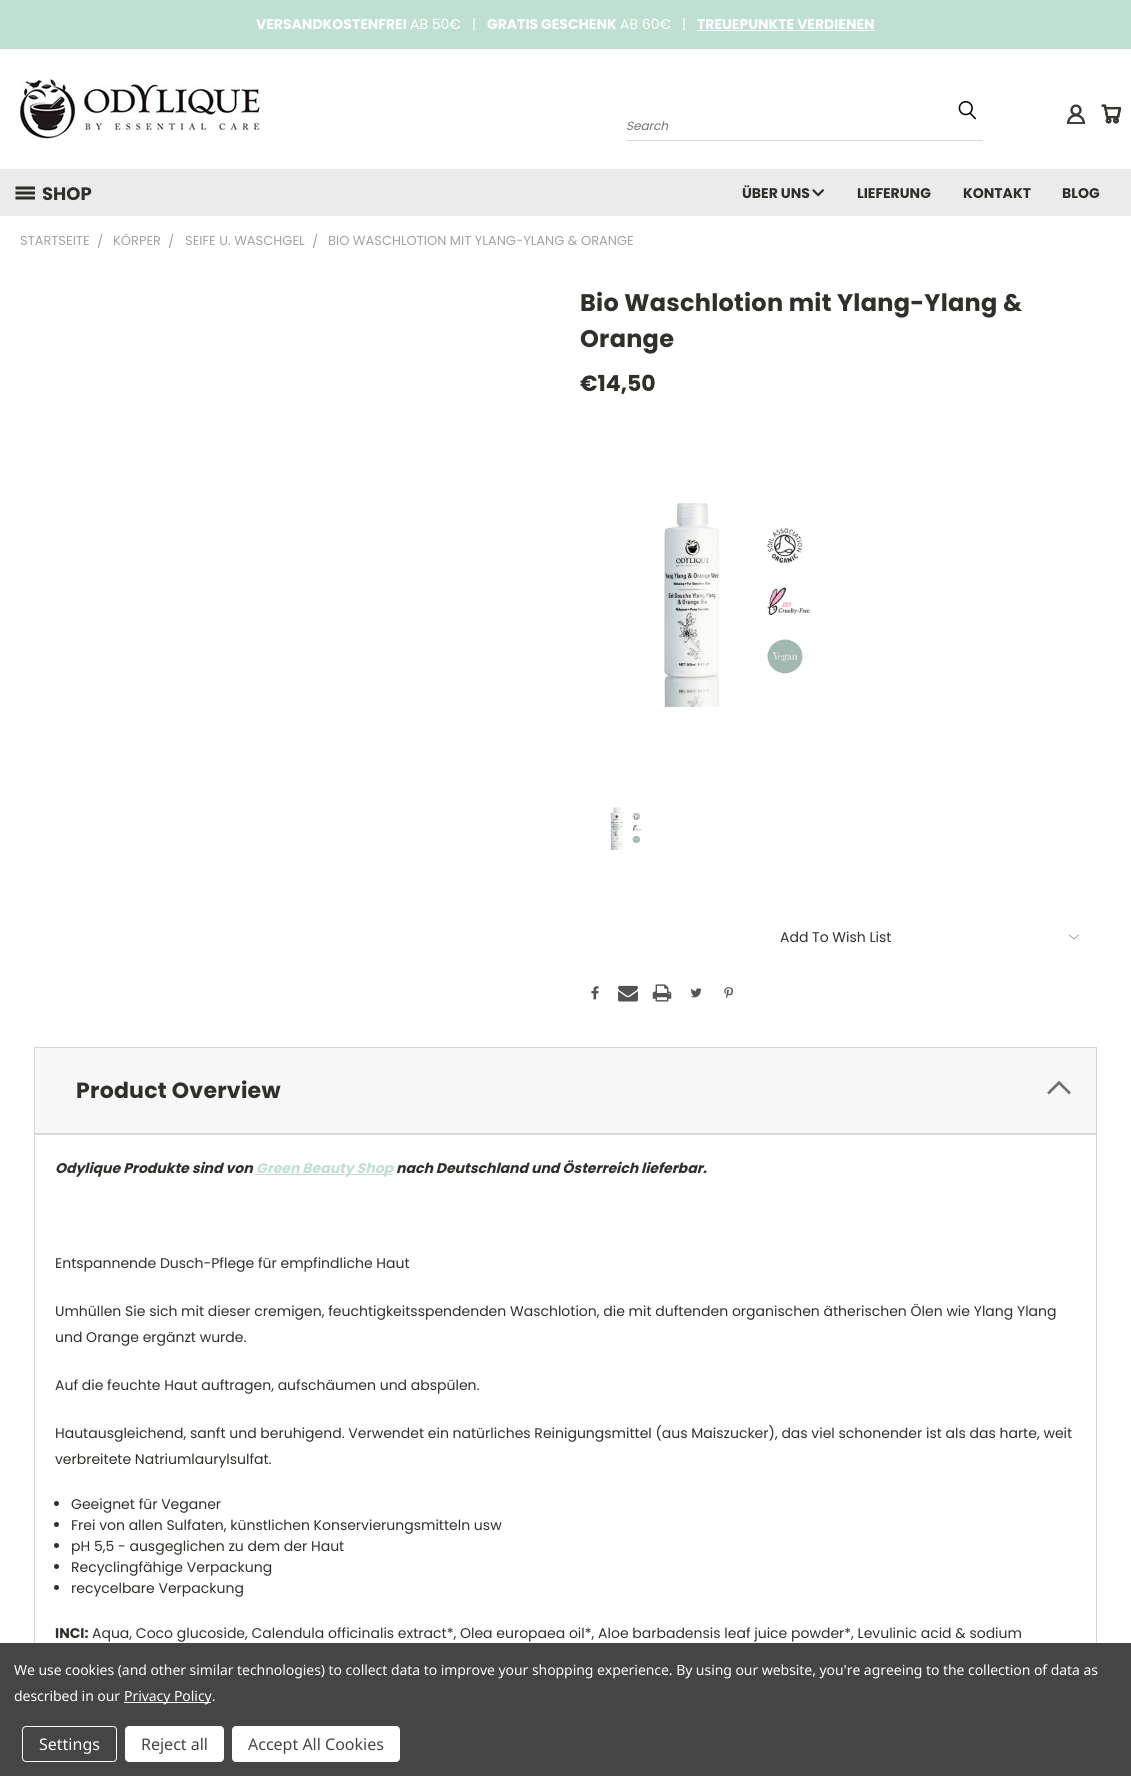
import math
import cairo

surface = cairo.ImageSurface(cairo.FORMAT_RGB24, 1131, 1776)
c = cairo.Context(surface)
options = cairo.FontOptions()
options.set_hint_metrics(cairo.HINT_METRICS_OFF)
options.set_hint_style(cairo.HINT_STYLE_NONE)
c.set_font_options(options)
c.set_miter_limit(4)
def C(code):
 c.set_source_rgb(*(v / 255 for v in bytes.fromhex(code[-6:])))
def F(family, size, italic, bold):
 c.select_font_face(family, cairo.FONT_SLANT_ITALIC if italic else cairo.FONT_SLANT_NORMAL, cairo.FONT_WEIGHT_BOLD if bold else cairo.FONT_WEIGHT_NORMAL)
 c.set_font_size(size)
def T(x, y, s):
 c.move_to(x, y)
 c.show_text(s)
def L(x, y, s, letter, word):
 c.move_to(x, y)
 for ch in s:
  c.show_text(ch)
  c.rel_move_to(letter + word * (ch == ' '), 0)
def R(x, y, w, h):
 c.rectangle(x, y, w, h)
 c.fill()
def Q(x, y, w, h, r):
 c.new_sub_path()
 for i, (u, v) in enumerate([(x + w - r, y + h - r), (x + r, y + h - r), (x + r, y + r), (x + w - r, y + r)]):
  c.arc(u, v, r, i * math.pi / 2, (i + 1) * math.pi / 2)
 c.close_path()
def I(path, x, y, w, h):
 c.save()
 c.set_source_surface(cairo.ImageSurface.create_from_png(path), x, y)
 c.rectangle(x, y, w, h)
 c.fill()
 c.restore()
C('ffffff')
c.paint()
C('bedfd1')
R(0,0,1131,49)
F('Poppins',14,0,1)
C('ffffff')
T(256,29,'VERSANDKOSTENFREI')
F('Poppins',14,0,0)
T(410,29,'AB 50€   |')
F('Poppins',14,0,1)
T(487,29,'GRATIS GESCHENK')
F('Poppins',14,0,0)
T(620,29,'AB 60€   |')
F('Poppins',14,0,1)
T(697,29,'TREUEPUNKTE VERDIENEN')
R(697,30,178,1)
I('1.png',15,79,245,60)
I('2.png',1067,104,18,20)
I('3.png',1101,104,20,20)
I('4.png',958,101,18,19)
C('d7d7d7')
R(626,140,357,1)
F('Poppins',12,1,0)
C('70706e')
T(626,130,'Search')
C('ebebeb')
R(0,169,1131,47)
I('5.png',15,186,20,14)
F('Poppins',18,0,1)
C('2f2f2b')
T(42,200,'SHOP')
F('Poppins',14,0,1)
T(742,198,'ÜBER UNS')
I('6.png',812,189,12,8)
T(857,198,'LIEFERUNG')
T(963,198,'KONTAKT')
T(1062,198,'BLOG')
F('Poppins',13,0,0)
C('a2a2a2')
T(20,245,'STARTSEITE')
T(97,246,'/')
T(113,245,'KÖRPER')
T(168,246,'/')
T(185,245,'SEIFE U. WASCHGEL')
T(312,246,'/')
T(328,245,'BIO WASCHLOTION MIT YLANG-YLANG & ORANGE')
F('Poppins',24,0,1)
C('2f2f2b')
L(580,311,'Bio Waschlotion mit Ylang-Ylang &',.25,0)
L(580,347,'Orange',.25,0)
F('Poppins',22,0,1)
T(580,391,'€14,50')
I('7.png',664,503,146,204)
I('8.png',610,807,32,43)
F('Poppins',14,0,0)
T(780,942,'Add To Wish List')
I('9.png',1069,934,10,6)
I('10.png',591,986,8,14)
I('11.png',618,985,20,17)
I('12.png',652,984,20,18)
I('13.png',690,988,12,10)
I('14.png',724,987,9,12)
C('f7f7f7')
c.rectangle(34.5,1047.5,1062,86)
c.fill_preserve()
C('d7d7d7')
c.set_line_width(1)
c.stroke()
F('Poppins',22,0,1)
C('2f2f2b')
L(76,1098,'Product Overview',.25,0)
I('15.png',1047,1080,24,15)
c.rectangle(34.5,1134.5,1062,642)
C('d7d7d7')
c.stroke()
F('Poppins',14,1,1)
C('2f2f2b')
T(55,1173,'Odylique Produkte sind von')
C('bedfd1')
R(256,1174,137,1)
T(256,1173,'Green Beauty Shop')
C('2f2f2b')
T(396,1173,'nach Deutschland und Österreich lieferbar.')
F('Poppins',14,0,0)
T(55,1268,'Entspannende Dusch-Pflege für empfindliche Haut')
T(55,1316,'Umhüllen Sie sich mit dieser cremigen, feuchtigkeitsspendenden Waschlotion, die mit duftenden organischen ätherischen Ölen wie Ylang Ylang')
T(55,1342,'und Orange ergänzt wurde.')
T(55,1390,'Auf die feuchte Haut auftragen, aufschäumen und abspülen.')
T(55,1438,'Hautausgleichend, sanft und beruhigend. Verwendet ein natürliches Reinigungsmittel (aus Maiszucker), das viel schonender ist als das harte, weit')
T(55,1464,'verbreitete Natriumlaurylsulfat.')
c.new_path()
c.arc(56.5,1503.5,2.5,0,2 * math.pi)
c.fill()
T(71,1509,'Geeignet für Veganer')
c.new_path()
c.arc(56.5,1524.5,2.5,0,2 * math.pi)
c.fill()
T(71,1530,'Frei von allen Sulfaten, künstlichen Konservierungsmitteln usw')
c.new_path()
c.arc(56.5,1545.5,2.5,0,2 * math.pi)
c.fill()
T(71,1551,'pH 5,5 - ausgeglichen zu dem der Haut')
c.new_path()
c.arc(56.5,1566.5,2.5,0,2 * math.pi)
c.fill()
T(71,1572,'Recyclingfähige Verpackung')
c.new_path()
c.arc(56.5,1587.5,2.5,0,2 * math.pi)
c.fill()
T(71,1593,'recycelbare Verpackung')
F('Poppins',14,0,1)
T(55,1638,'INCI:')
F('Poppins',14,0,0)
T(92,1638,'Aqua, Coco glucoside, Calendula officinalis extract*, Olea europaea oil*, Aloe barbadensis leaf juice powder*, Levulinic acid & sodium')
C('454545')
R(0,1643,1131,133)
F('Noto Sans',14,0,0)
C('ffffff')
L(14,1675,'We use cookies (and other similar technologies) to collect data to improve your shopping experience. By using our website, you\'re agreeing to the collection of data as',-.05,0)
L(14,1701,'described in our',-.05,0)
R(124,1702,87,1)
L(124,1701,'Privacy Policy.',-.05,0)
Q(22.5,1726.5,94,35,3.5)
c.stroke()
F('Noto Sans',16,0,0)
T(39,1750,'Settings')
Q(125,1726,99,36,4)
c.fill()
C('454545')
T(141,1750,'Reject all')
C('ffffff')
Q(232,1726,168,36,4)
c.fill()
C('454545')
T(248,1750,'Accept All Cookies')
surface.write_to_png('o.png')
